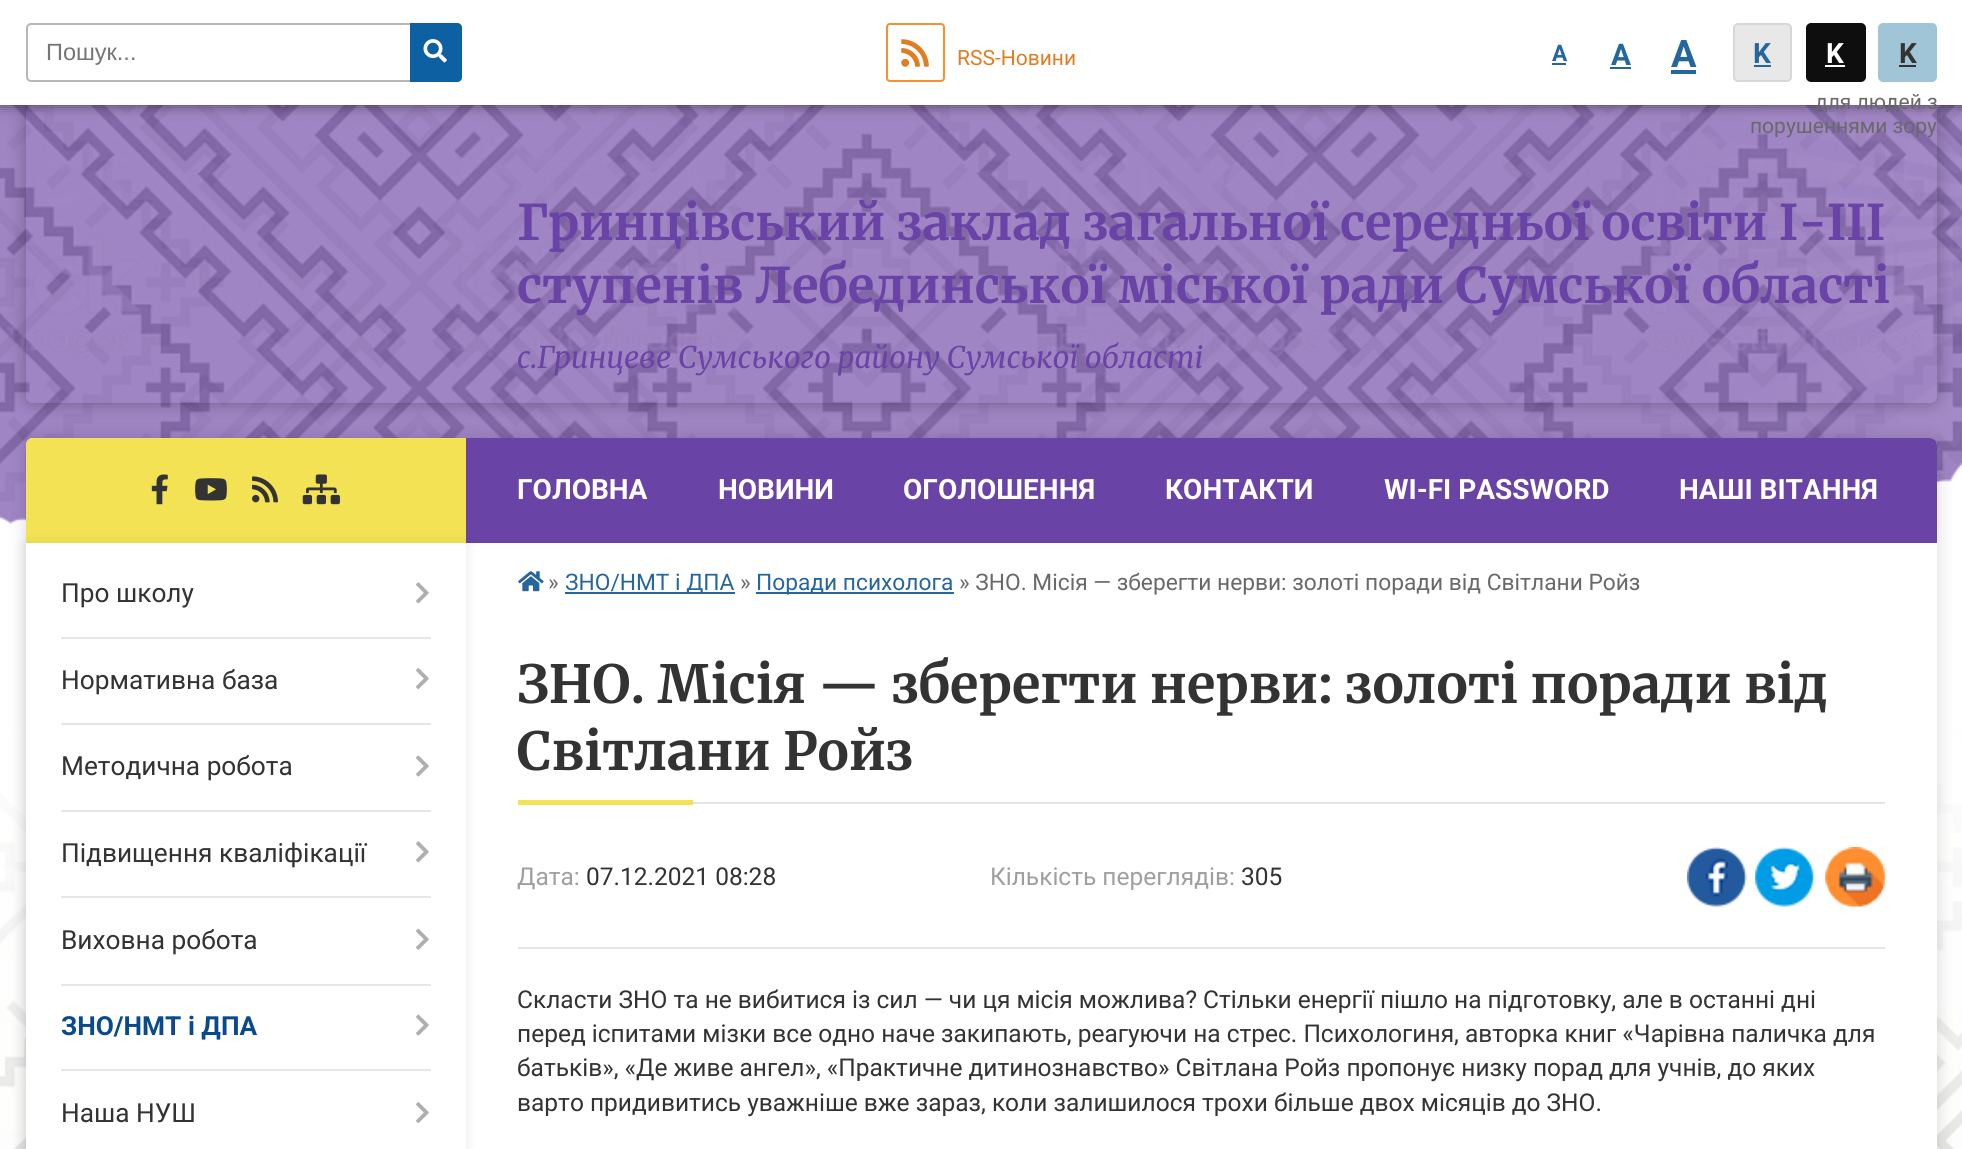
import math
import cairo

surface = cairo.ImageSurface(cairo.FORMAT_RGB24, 1962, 1149)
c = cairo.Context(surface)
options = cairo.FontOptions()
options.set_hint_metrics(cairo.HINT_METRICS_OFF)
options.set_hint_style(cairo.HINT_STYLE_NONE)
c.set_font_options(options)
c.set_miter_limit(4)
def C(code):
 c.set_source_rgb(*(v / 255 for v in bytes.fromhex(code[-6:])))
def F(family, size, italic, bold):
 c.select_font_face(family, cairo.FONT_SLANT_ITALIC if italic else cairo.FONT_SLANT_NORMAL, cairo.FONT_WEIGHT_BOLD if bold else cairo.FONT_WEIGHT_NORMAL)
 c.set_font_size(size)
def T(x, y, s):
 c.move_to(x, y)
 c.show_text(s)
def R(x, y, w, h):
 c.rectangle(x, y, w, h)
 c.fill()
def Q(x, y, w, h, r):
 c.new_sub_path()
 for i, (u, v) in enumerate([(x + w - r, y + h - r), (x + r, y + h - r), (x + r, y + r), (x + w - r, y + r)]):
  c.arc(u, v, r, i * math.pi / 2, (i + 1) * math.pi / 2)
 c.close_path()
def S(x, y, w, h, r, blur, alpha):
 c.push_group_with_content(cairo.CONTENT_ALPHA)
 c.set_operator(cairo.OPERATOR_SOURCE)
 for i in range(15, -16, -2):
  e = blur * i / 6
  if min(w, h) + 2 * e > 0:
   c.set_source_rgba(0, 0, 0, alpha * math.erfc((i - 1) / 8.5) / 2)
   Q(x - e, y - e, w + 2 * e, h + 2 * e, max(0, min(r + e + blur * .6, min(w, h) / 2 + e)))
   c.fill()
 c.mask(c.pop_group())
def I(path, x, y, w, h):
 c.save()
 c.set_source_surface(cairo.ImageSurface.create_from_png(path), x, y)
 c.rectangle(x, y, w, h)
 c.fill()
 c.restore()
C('ffffff')
c.paint()
I('1.png',0,105,1962,1044)
c.set_source_rgba(0.412,0.251,0.651,0.73)
R(0,105,1962,419)
I('16.png',0,105,1962,419)
I('17.png',0,107,1962,1042)
C('000000')
S(0,2,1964,105,0,6,.4)
c.save()
c.set_fill_rule(cairo.FILL_RULE_EVEN_ODD)
c.new_path()
c.move_to(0,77)
c.line_to(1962,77)
c.line_to(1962,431)
c.line_to(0,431)
c.close_path()
c.move_to(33,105)
c.line_to(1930,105)
c.curve_to(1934,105,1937,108,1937,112)
c.line_to(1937,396)
c.curve_to(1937,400,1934,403,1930,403)
c.line_to(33,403)
c.curve_to(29,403,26,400,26,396)
c.line_to(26,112)
c.curve_to(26,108,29,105,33,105)
c.close_path()
c.clip()
S(26,105,1911,298,7,9,.3)
c.restore()
C('ffffff')
R(0,0,1962,105)
Q(27,24,434,57,4)
C('b7b7b7')
c.stroke()
F('Liberation Sans',23.5,0,0)
C('757575')
T(46,60,'Пошук...')
C('0d61a2')
c.new_path()
c.move_to(410,23)
c.line_to(457,23)
c.curve_to(460,23,462,25,462,28)
c.line_to(462,77)
c.curve_to(462,80,460,82,457,82)
c.line_to(410,82)
c.close_path()
c.fill()
I('2.png',423,39,24,24)
Q(887,24,57,57,3)
C('f79030')
c.stroke()
I('3.png',901,39,28,28)
F('Roboto',21,0,0)
C('e07d21')
T(957,65,'RSS-Новини')
F('Roboto',22.75,0,1)
C('25669c')
T(1552,61,'A')
R(1552,63,14,2)
F('Roboto',29.75,0,1)
T(1611,65,'A')
R(1610,67,21,2)
F('Roboto',38,0,1)
T(1671,67,'A')
R(1671,70,25,4)
C('e8e8e8')
Q(1734,24,57,57,4)
c.fill_preserve()
C('d7d7d7')
c.stroke()
F('Roboto',28,0,1)
C('25669c')
T(1753,63,'K')
R(1754,65,17,2)
C('0e0e0e')
Q(1807,24,58,57,4)
c.fill_preserve()
c.stroke()
C('ffffff')
T(1826,63,'K')
R(1825,65,20,2)
C('a0c5d6')
Q(1879,24,57,57,4)
c.fill_preserve()
c.stroke()
C('333333')
T(1899,63,'K')
R(1899,65,17,2)
F('Roboto',21,0,0)
C('696969')
T(1815,109,'для людей з')
T(1750,133,'порушеннями зору')
F('Merriweather Light',49,0,0)
C('6943a5')
T(517,240,'Гринцівський заклад загальної середньої освіти І-ІІІ')
T(517,303,'ступенів Лебединської міської ради Сумської області')
F('Merriweather Light',29.75,1,0)
T(517,368,'с.Гринцеве Сумського району Сумської області')
C('000000')
S(26,438,1911,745,7,9,.15)
C('ffffff')
Q(26,438,1911,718,7)
c.fill()
C('f3e254')
c.new_path()
c.move_to(33,438)
c.line_to(466,438)
c.line_to(466,543)
c.line_to(26,543)
c.line_to(26,445)
c.curve_to(26,441,29,438,33,438)
c.close_path()
c.fill()
I('4.png',151,474,17,31)
I('5.png',195,478,32,23)
I('6.png',252,476,26,27)
I('7.png',302,474,38,31)
C('6943a5')
c.new_path()
c.move_to(466,438)
c.line_to(1930,438)
c.curve_to(1934,438,1937,441,1937,445)
c.line_to(1937,543)
c.line_to(466,543)
c.close_path()
c.fill()
c.save()
c.set_fill_rule(cairo.FILL_RULE_EVEN_ODD)
c.new_path()
c.move_to(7,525)
c.line_to(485,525)
c.line_to(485,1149)
c.line_to(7,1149)
c.close_path()
c.move_to(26,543)
c.line_to(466,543)
c.line_to(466,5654)
c.line_to(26,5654)
c.close_path()
c.clip()
C('000000')
S(26,544,440,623,0,6,.1)
c.restore()
F('Roboto',26.25,0,0)
C('333333')
T(61,602,'Про школу')
C('e6e6e6')
R(61,637,370,2)
I('8.png',416,582,13,22)
C('333333')
T(61,689,'Нормативна база')
C('e6e6e6')
R(61,723,370,2)
I('9.png',416,668,13,21)
C('333333')
T(61,775,'Методична робота')
C('e6e6e6')
R(61,810,370,2)
I('10.png',416,755,13,22)
C('333333')
T(61,862,'Підвищення кваліфікації')
C('e6e6e6')
R(61,896,370,2)
I('8.png',416,841,13,22)
C('333333')
T(61,949,'Виховна робота')
C('e6e6e6')
R(61,984,370,2)
I('11.png',416,928,13,22)
F('Roboto',26.25,0,1)
C('084a8c')
T(61,1035,'ЗНО/НМТ і ДПА')
C('e6e6e6')
R(61,1069,370,2)
I('10.png',416,1014,13,22)
F('Roboto',26.25,0,0)
C('333333')
T(61,1122,'Наша НУШ')
I('9.png',416,1102,13,21)
F('Roboto',28,0,1)
C('ffffff')
T(517,499,'ГОЛОВНА')
T(718,499,'НОВИНИ')
T(903,499,'ОГОЛОШЕННЯ')
T(1165,499,'КОНТАКТИ')
T(1384,499,'WI-FI PASSWORD')
T(1679,499,'НАШІ ВІТАННЯ')
I('12.png',518,571,26,21)
F('Roboto',22.75,0,0)
C('696969')
T(548,590,'»')
C('25669c')
R(565,592,170,2)
T(565,590,'ЗНО/НМТ і ДПА')
C('696969')
T(740,590,'»')
C('25669c')
R(756,592,198,2)
T(756,590,'Поради психолога')
C('696969')
T(959,590,'» ЗНО. Місія — зберегти нерви: золоті поради від Світлани Ройз')
C('e5e5e5')
R(693,802,1192,2)
F('Merriweather Light',52.5,0,0)
C('333333')
T(517,703,'ЗНО. Місія — зберегти нерви: золоті поради від')
T(517,770,'Світлани Ройз')
C('f3e254')
R(518,800,175,5)
F('Roboto',24.5,0,0)
C('9f9f9f')
T(517,885,'Дата:')
C('333333')
T(586,885,'07.12.2021 08:28')
C('9f9f9f')
T(990,885,'Кількість переглядів:')
C('333333')
T(1241,885,'305')
I('13.png',1687,847,60,60)
I('14.png',1755,847,59,60)
I('15.png',1825,847,60,60)
C('e5e5e5')
R(518,947,1367,2)
C('333333')
T(517,1008,'Скласти ЗНО та не вибитися із сил — чи ця місія можлива? Стільки енергії пішло на підготовку, але в останні дні')
T(517,1042,'перед іспитами мізки все одно наче закипають, реагуючи на стрес. Психологиня, авторка книг «Чарівна паличка для')
T(517,1076,'батьків», «Де живе ангел», «Практичне дитинознавство» Світлана Ройз пропонує низку порад для учнів, до яких')
T(517,1111,'варто придивитись уважніше вже зараз, коли залишилося трохи більше двох місяців до ЗНО.')
surface.write_to_png('o.png')
